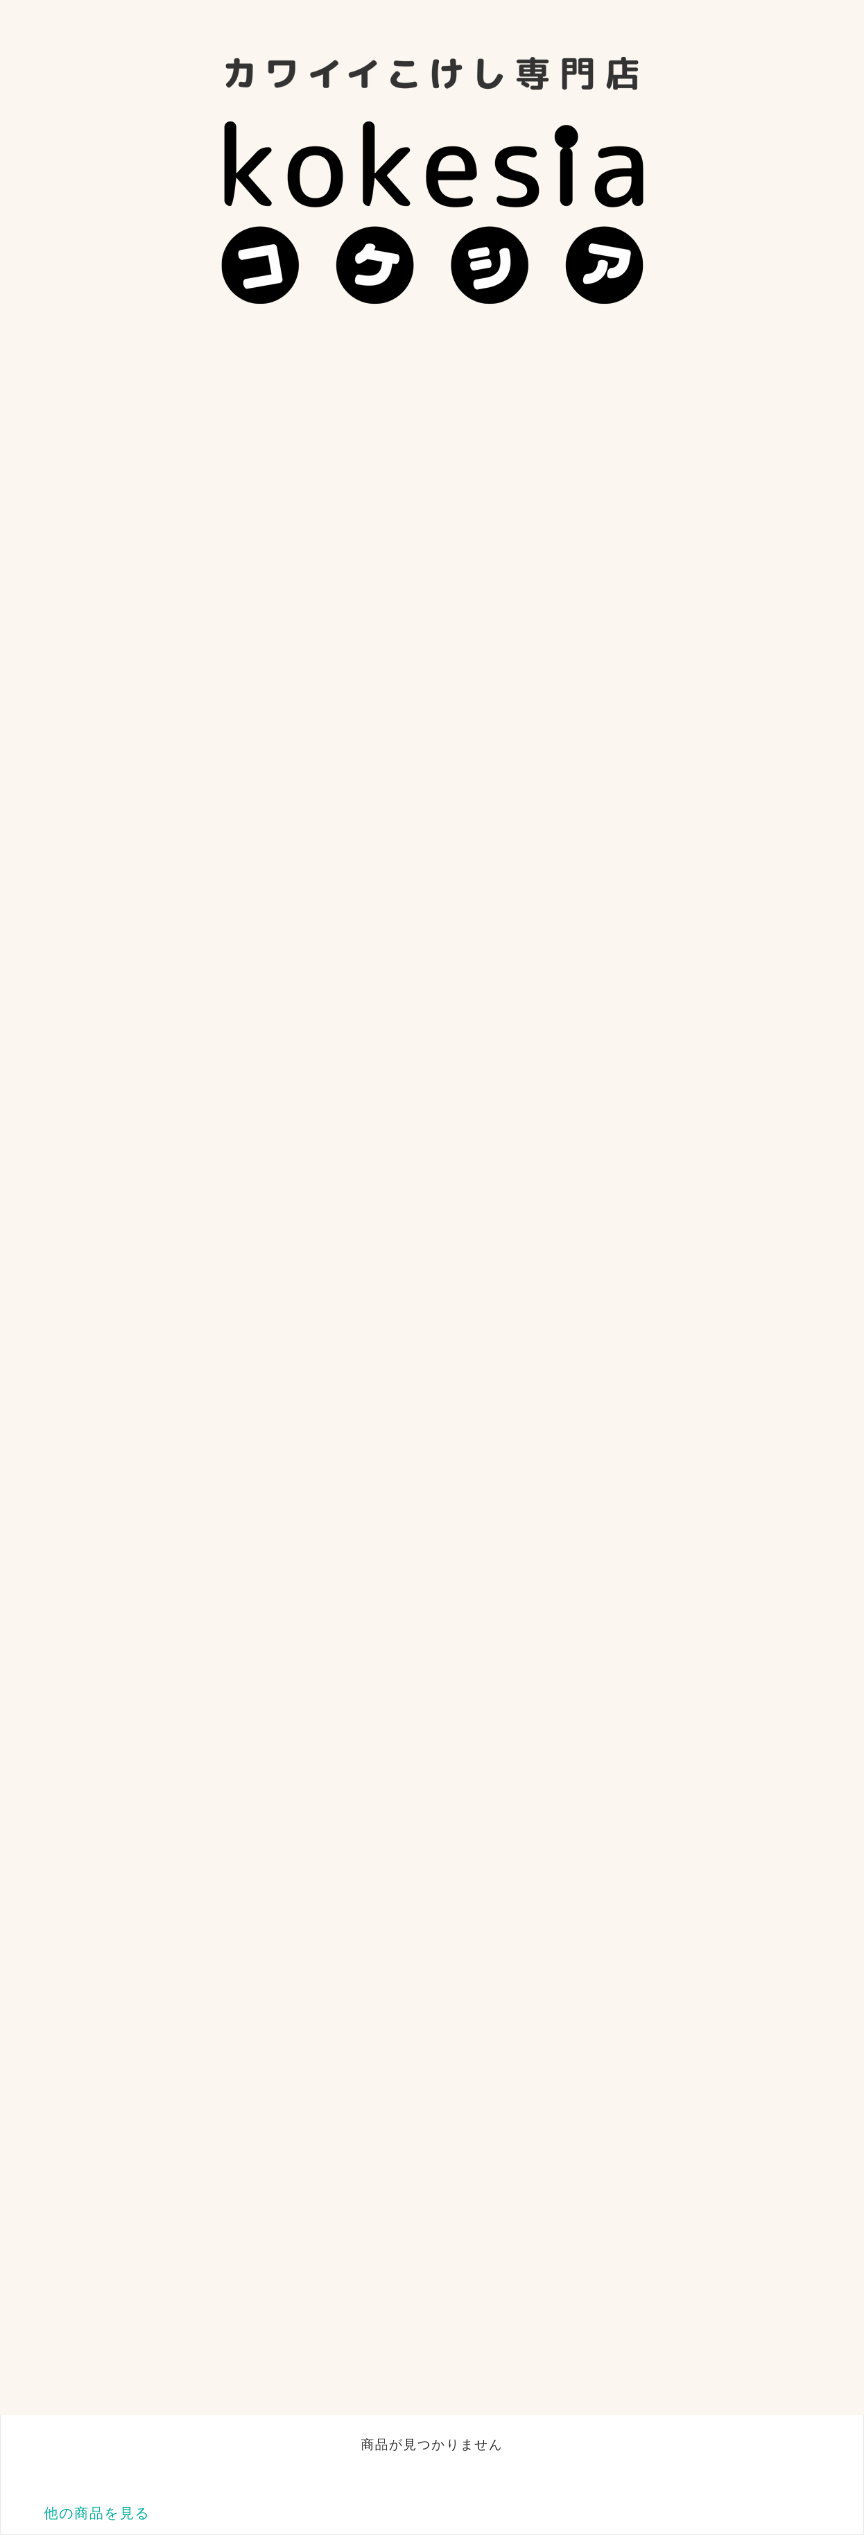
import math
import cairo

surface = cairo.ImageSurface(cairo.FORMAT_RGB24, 864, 2535)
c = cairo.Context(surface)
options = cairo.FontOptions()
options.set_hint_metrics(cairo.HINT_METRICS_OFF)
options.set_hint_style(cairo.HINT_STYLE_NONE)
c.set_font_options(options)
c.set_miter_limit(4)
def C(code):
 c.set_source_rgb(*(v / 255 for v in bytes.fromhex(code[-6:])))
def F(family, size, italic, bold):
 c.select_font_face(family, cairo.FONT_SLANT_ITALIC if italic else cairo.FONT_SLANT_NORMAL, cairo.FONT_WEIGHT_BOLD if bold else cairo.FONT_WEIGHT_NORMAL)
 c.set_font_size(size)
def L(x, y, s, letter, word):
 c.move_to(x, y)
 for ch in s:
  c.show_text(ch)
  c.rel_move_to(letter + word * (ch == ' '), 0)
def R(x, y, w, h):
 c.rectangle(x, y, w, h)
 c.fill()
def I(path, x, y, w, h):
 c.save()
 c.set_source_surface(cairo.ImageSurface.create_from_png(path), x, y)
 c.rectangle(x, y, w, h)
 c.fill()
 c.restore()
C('fbf6ef')
c.paint()
I('1.png',221,56,423,249)
C('ffffff')
R(1,2415,862,119)
C('ececec')
R(863,2415,1,120)
R(0,2534,864,1)
R(0,2415,1,120)
F('WenQuanYi Zen Hei Medium',13,0,0)
C('333333')
L(361,2449,'商品が見つかりません',1,0)
F('WenQuanYi Zen Hei Medium',14,0,0)
C('00ae9f')
L(44,2518,'他の商品を見る',1,0)
surface.write_to_png('o.png')
